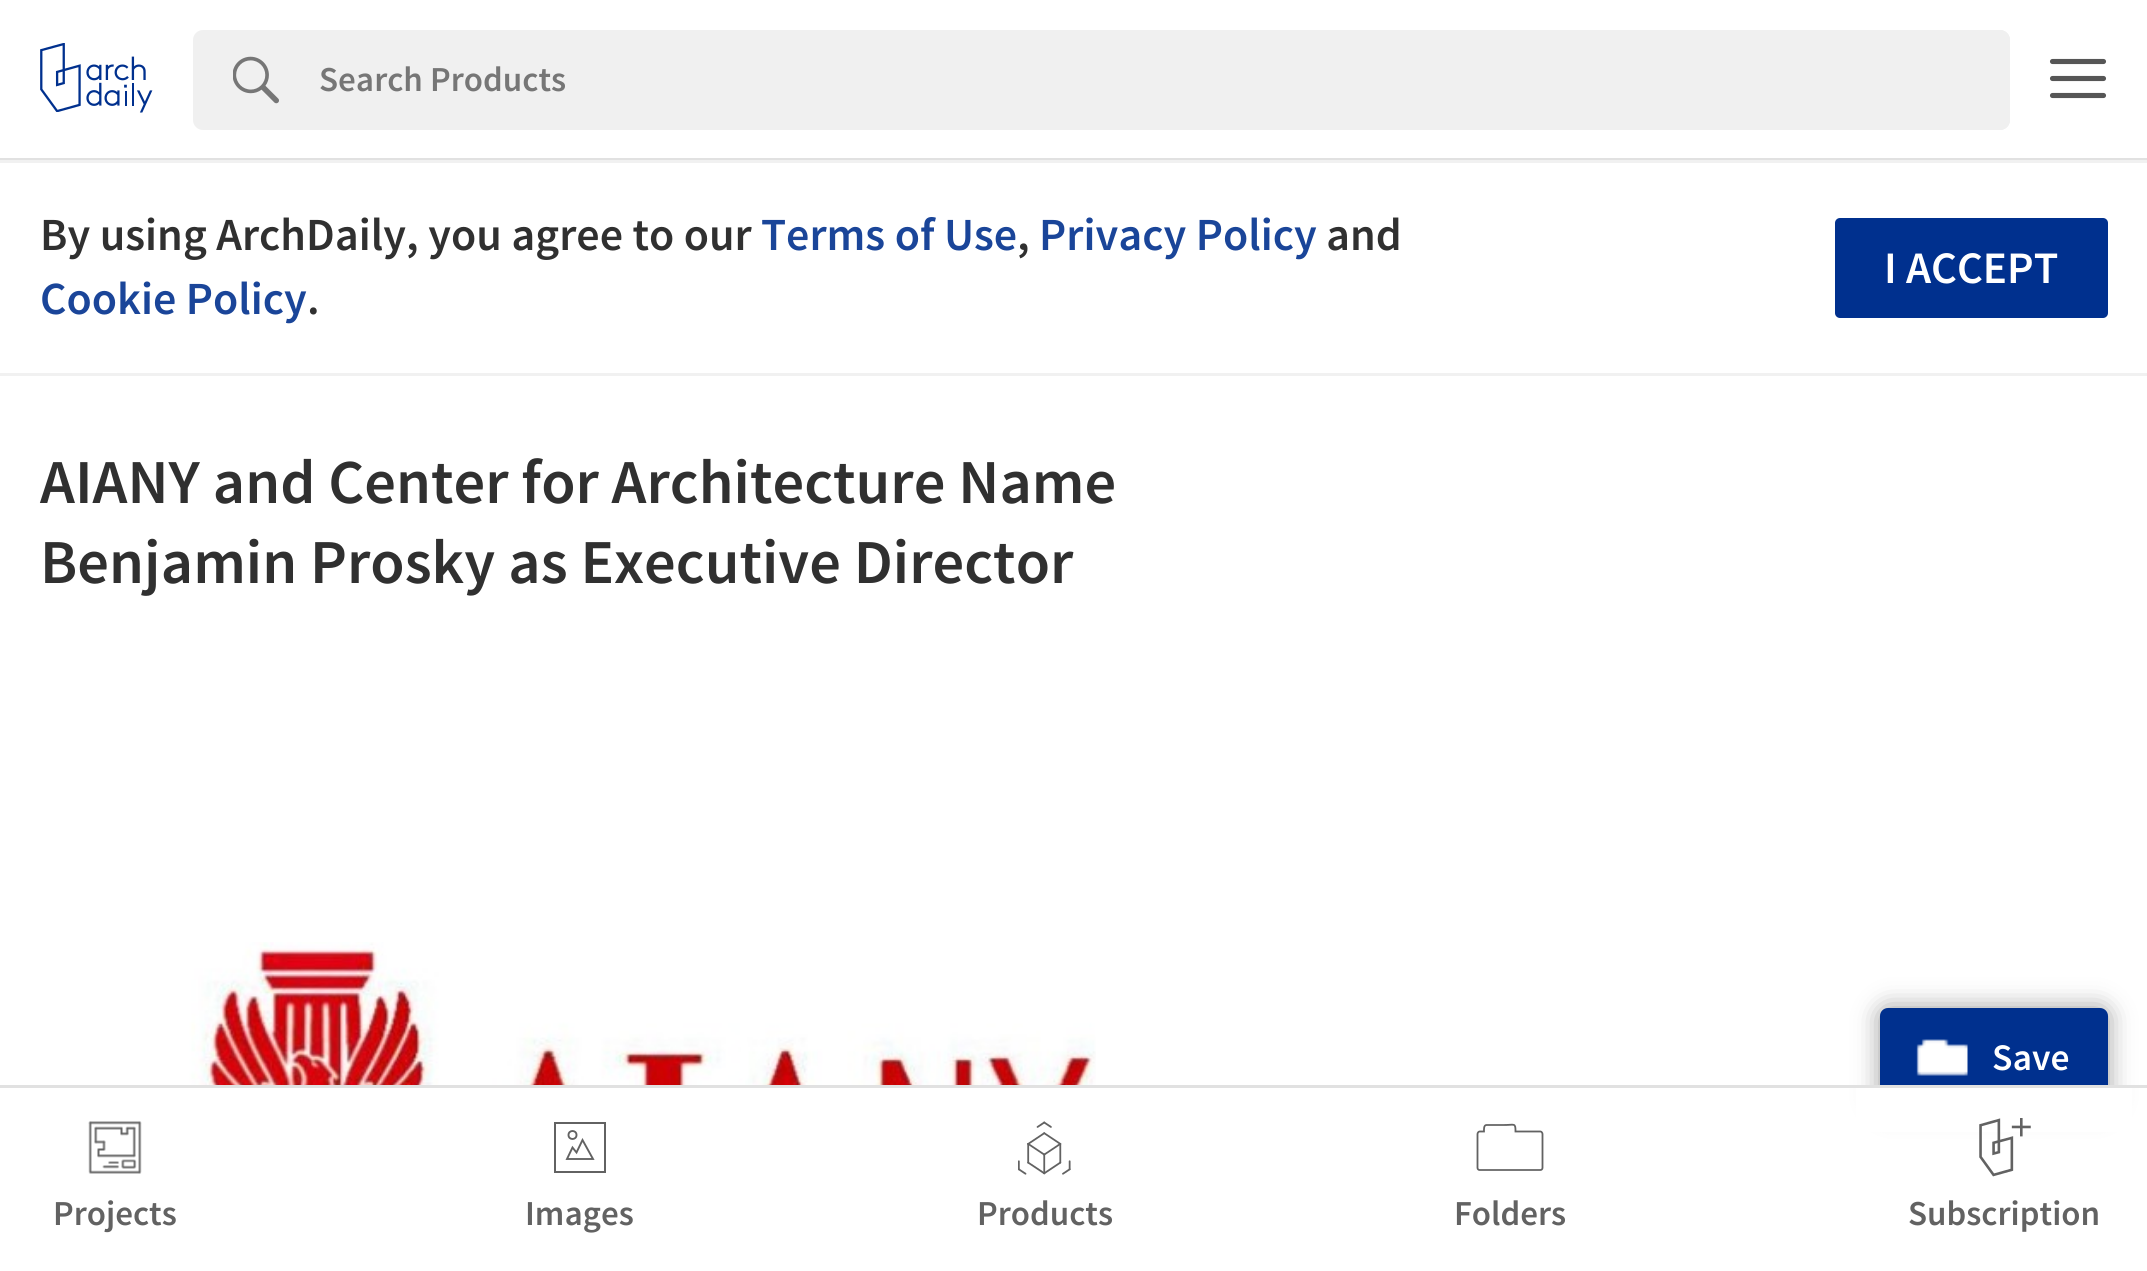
import math
import cairo

surface = cairo.ImageSurface(cairo.FORMAT_RGB24, 2147, 1271)
c = cairo.Context(surface)
options = cairo.FontOptions()
options.set_hint_metrics(cairo.HINT_METRICS_OFF)
options.set_hint_style(cairo.HINT_STYLE_NONE)
c.set_font_options(options)
c.set_miter_limit(4)
def C(code):
 c.set_source_rgb(*(v / 255 for v in bytes.fromhex(code[-6:])))
def F(family, size, italic, bold):
 c.select_font_face(family, cairo.FONT_SLANT_ITALIC if italic else cairo.FONT_SLANT_NORMAL, cairo.FONT_WEIGHT_BOLD if bold else cairo.FONT_WEIGHT_NORMAL)
 c.set_font_size(size)
def T(x, y, s):
 c.move_to(x, y)
 c.show_text(s)
def R(x, y, w, h):
 c.rectangle(x, y, w, h)
 c.fill()
def Q(x, y, w, h, r):
 c.new_sub_path()
 for i, (u, v) in enumerate([(x + w - r, y + h - r), (x + r, y + h - r), (x + r, y + r), (x + w - r, y + r)]):
  c.arc(u, v, r, i * math.pi / 2, (i + 1) * math.pi / 2)
 c.close_path()
def S(x, y, w, h, r, blur, alpha):
 c.push_group_with_content(cairo.CONTENT_ALPHA)
 c.set_operator(cairo.OPERATOR_SOURCE)
 for i in range(15, -16, -2):
  e = blur * i / 6
  if min(w, h) + 2 * e > 0:
   c.set_source_rgba(0, 0, 0, alpha * math.erfc((i - 1) / 8.5) / 2)
   Q(x - e, y - e, w + 2 * e, h + 2 * e, max(0, min(r + e + blur * .6, min(w, h) / 2 + e)))
   c.fill()
 c.mask(c.pop_group())
def I(path, x, y, w, h):
 c.save()
 c.set_source_surface(cairo.ImageSurface.create_from_png(path), x, y)
 c.rectangle(x, y, w, h)
 c.fill()
 c.restore()
C('ffffff')
c.paint()
C('e1e1e1')
R(0,158,2147,2)
I('1.png',40,43,113,70)
C('f0f0f0')
Q(193,30,1817,100,10)
c.fill()
I('2.png',233,56,46,48)
c.new_path()
c.move_to(320,30)
c.line_to(2000,30)
c.curve_to(2005.5,30,2010,34.5,2010,40)
c.line_to(2010,120)
c.curve_to(2010,125.5,2005.5,130,2000,130)
c.line_to(320,130)
c.close_path()
c.fill()
F('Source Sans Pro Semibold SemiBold',35,0,0)
C('767676')
T(319,91,'Search Products')
c.new_path()
c.move_to(2052.5,61.5)
c.line_to(2103.5,61.5)
c.move_to(2052.5,78.5)
c.line_to(2103.5,78.5)
c.move_to(2052.5,95.5)
c.line_to(2103.5,95.5)
C('565656')
c.set_line_width(5.1)
c.set_line_cap(cairo.LINE_CAP_ROUND)
c.stroke()
C('f1f1f1')
R(0,160,2147,3)
R(0,373,2147,3)
F('Source Sans Pro Semibold SemiBold',46,0,0)
C('303030')
T(40,250,'By using ArchDaily, you agree to our')
C('1a4599')
T(761,250,'Terms of Use')
C('303030')
T(1017,250,',')
C('1a4599')
T(1039,250,'Privacy Policy')
C('303030')
T(1326,250,'and')
C('1a4599')
T(40,314,'Cookie Policy')
C('303030')
T(307,314,'.')
C('00308e')
Q(1835,218,273,100,5)
c.fill()
F('Source Sans Pro Semibold SemiBold',45,0,0)
C('ffffff')
T(1884,283,'I ACCEPT')
F('Source Sans Pro Semibold SemiBold',62.5,0,0)
C('303030')
T(40,503,'AIANY and Center for Architecture Name')
T(40,583,'Benjamin Prosky as Executive Director')
I('3.png',169,942,927,143)
C('000000')
S(1880,1008,228,100,8,12.5,.4)
C('00308e')
Q(1880,1008,228,100,8)
c.fill()
I('4.png',1916,1039,52,37)
F('Source Sans Pro Semibold SemiBold',37.5,0,0)
C('ffffff')
T(1992,1070,'Save')
C('e1e1e1')
R(0,1085,2147,3)
C('ffffff')
R(1856,1088,276,44)
I('5.png',88,1121,54,53)
F('Source Sans Pro Semibold SemiBold',35,0,0)
C('626262')
T(53,1225,'Projects')
c.rectangle(555,1123,50,49)
c.set_line_width(2)
c.set_line_cap(cairo.LINE_CAP_BUTT)
c.stroke()
c.new_path()
c.move_to(582.5,1140)
c.line_to(593,1159)
c.line_to(567,1159)
c.line_to(572.5,1147.5)
c.line_to(576.5,1152.5)
c.close_path()
c.set_line_width(1.9)
c.set_line_cap(cairo.LINE_CAP_ROUND)
c.stroke()
c.arc(572.5,1135,4,0,2 * math.pi)
c.set_line_cap(cairo.LINE_CAP_BUTT)
c.stroke()
T(525,1225,'Images')
I('6.png',1018,1121,53,54)
T(977,1225,'Products')
c.new_path()
c.move_to(1486.5,1125)
c.curve_to(1483.5,1125,1484,1130,1484,1131.5)
c.line_to(1479.5,1131.5)
c.curve_to(1478.5,1131.5,1477.5,1133,1477.5,1134)
c.line_to(1477.5,1168)
c.curve_to(1477.5,1169,1478.5,1170,1479.5,1170)
c.line_to(1540.5,1170)
c.curve_to(1541.5,1170,1542.5,1169,1542.5,1168)
c.line_to(1542.5,1134)
c.curve_to(1542.5,1133,1541.5,1131.5,1540.5,1131.5)
c.line_to(1515.5,1131.5)
c.curve_to(1515.5,1122.5,1514.5,1125,1504.5,1125)
c.close_path()
c.set_line_width(1.8)
c.stroke()
T(1454,1225,'Folders')
I('7.png',1979,1118,52,59)
T(1908,1225,'Subscription')
surface.write_to_png('o.png')
